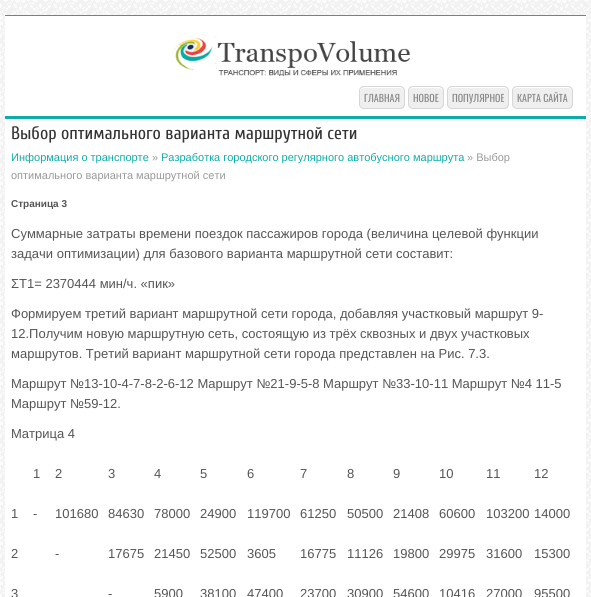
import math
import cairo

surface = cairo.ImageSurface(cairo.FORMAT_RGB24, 591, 597)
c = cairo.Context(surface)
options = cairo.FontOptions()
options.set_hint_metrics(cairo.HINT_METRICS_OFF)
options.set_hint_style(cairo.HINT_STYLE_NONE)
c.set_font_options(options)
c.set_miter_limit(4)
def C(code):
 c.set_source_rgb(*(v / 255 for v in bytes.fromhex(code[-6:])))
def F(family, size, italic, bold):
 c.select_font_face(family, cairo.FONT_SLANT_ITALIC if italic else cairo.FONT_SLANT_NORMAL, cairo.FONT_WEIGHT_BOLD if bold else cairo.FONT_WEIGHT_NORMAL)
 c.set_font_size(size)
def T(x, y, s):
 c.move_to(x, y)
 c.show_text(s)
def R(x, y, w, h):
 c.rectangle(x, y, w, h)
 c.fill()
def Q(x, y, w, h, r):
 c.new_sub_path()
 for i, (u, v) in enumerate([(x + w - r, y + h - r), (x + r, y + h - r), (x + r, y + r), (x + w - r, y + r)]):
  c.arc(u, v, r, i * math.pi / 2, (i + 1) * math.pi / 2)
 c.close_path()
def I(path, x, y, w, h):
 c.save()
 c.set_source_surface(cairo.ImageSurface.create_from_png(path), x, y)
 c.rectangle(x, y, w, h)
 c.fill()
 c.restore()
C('ffffff')
c.paint()
I('1.png',0,0,591,597)
C('11aea9')
R(5,15,581,1)
C('ffffff')
R(5,16,581,100)
C('0faca8')
R(5,116,581,3)
I('2.png',171,36,240,40)
C('efefef')
Q(359,86,46,23,5)
c.fill()
C('ffffff')
c.new_path()
c.move_to(364,88)
c.line_to(400,88)
c.curve_to(402,88,404,90,404,92)
c.curve_to(404,86,399,87,394,87)
c.line_to(370,87)
c.curve_to(365,87,360,86,360,92)
c.curve_to(360,90,362,88,364,88)
c.close_path()
c.fill()
Q(359.5,86.5,45,22,4.5)
C('d7d7d7')
c.set_line_width(1)
c.stroke()
F('Oswald',10,0,0)
C('898989')
T(364,102,'ГЛАВНАЯ')
C('efefef')
Q(408,86,36,23,5)
c.fill()
C('ffffff')
c.set_fill_rule(cairo.FILL_RULE_EVEN_ODD)
c.new_path()
c.move_to(413,88)
c.line_to(435,88)
c.curve_to(441.5,88,443,89,443,92.5)
c.curve_to(443,86.5,440,87,434.5,87)
c.line_to(417.5,87)
c.curve_to(411.5,87,409,86.5,409,93)
c.curve_to(409,90.5,410,88,413,88)
c.close_path()
c.move_to(443,104)
c.line_to(443,105)
c.close_path()
c.fill()
Q(408.5,86.5,35,22,4.5)
C('d7d7d7')
c.stroke()
C('898989')
T(413,102,'НОВОЕ')
C('efefef')
Q(447,86,62,23,5)
c.fill()
C('ffffff')
c.set_fill_rule(cairo.FILL_RULE_WINDING)
c.new_path()
c.move_to(452,88)
c.line_to(504,88)
c.curve_to(506,88,508,90,508,92)
c.curve_to(508,85,500,87,495,87)
c.line_to(461,87)
c.curve_to(456,87,448,85,448,92)
c.curve_to(448,90,450,88,452,88)
c.close_path()
c.fill()
Q(447.5,86.5,61,22,4.5)
C('d7d7d7')
c.stroke()
C('898989')
T(452,102,'ПОПУЛЯРНОЕ')
C('efefef')
Q(512,86,61,23,5)
c.fill()
C('ffffff')
c.new_path()
c.move_to(517,88)
c.line_to(568,88)
c.curve_to(570,88,572,90,572,92)
c.curve_to(572,85,565,87,560,87)
c.line_to(526,87)
c.curve_to(520,87,513,85,513,92)
c.curve_to(513,90,515,88,517,88)
c.close_path()
c.fill()
Q(512.5,86.5,60,22,4.5)
C('d7d7d7')
c.stroke()
C('898989')
T(517,102,'КАРТА САЙТА')
C('ffffff')
R(5,119,581,478)
F('Cuprum',18,0,0)
C('333333')
T(11,139,'Выбор оптимального варианта маршрутной сети')
F('Liberation Sans',11,0,0)
C('0eaca8')
T(11,161,'Информация о транспорте')
C('999999')
T(152,161,'»')
C('0eaca8')
T(161,161,'Разработка городского регулярного автобусного маршрута')
C('999999')
T(467,161,'» Выбор')
T(11,179,'оптимального варианта маршрутной сети')
F('Liberation Sans',10,0,1)
C('555555')
T(11,207,'Страница 3')
F('Liberation Sans',13,0,0)
T(11,238,'Суммарные затраты времени поездок пассажиров города (величина целевой функции')
T(11,258,'задачи оптимизации) для базового варианта маршрутной сети составит:')
T(11,288,'ΣT1= 2370444 мин/ч. «пик»')
T(11,318,'Формируем третий вариант маршрутной сети города, добавляя участковый маршрут 9-')
T(11,338,'12.Получим новую маршрутную сеть, состоящую из трёх сквозных и двух участковых')
T(11,358,'маршрутов. Третий вариант маршрутной сети города представлен на Рис. 7.3.')
T(11,388,'Маршрут №13-10-4-7-8-2-6-12 Маршрут №21-9-5-8 Маршрут №33-10-11 Маршрут №4 11-5')
T(11,408,'Маршрут №59-12.')
T(11,438,'Матрица 4')
T(33,478,'1')
T(55,478,'2')
T(108,478,'3')
T(154,478,'4')
T(200,478,'5')
T(247,478,'6')
T(300,478,'7')
T(347,478,'8')
T(393,478,'9')
T(439,478,'10')
T(486,478,'11')
T(534,478,'12')
T(11,518,'1')
T(33,518,'-')
T(55,518,'101680')
T(108,518,'84630')
T(154,518,'78000')
T(200,518,'24900')
T(247,518,'119700')
T(300,518,'61250')
T(347,518,'50500')
T(393,518,'21408')
T(439,518,'60600')
T(486,518,'103200')
T(534,518,'14000')
T(11,558,'2')
T(55,558,'-')
T(108,558,'17675')
T(154,558,'21450')
T(200,558,'52500')
T(247,558,'3605')
T(300,558,'16775')
T(347,558,'11126')
T(393,558,'19800')
T(439,558,'29975')
T(486,558,'31600')
T(534,558,'15300')
T(11,598,'3')
T(108,598,'-')
T(154,598,'5900')
T(200,598,'38100')
T(247,598,'47400')
T(300,598,'23700')
T(347,598,'30900')
T(393,598,'54600')
T(439,598,'10416')
T(486,598,'27000')
T(534,598,'95500')
surface.write_to_png('o.png')
